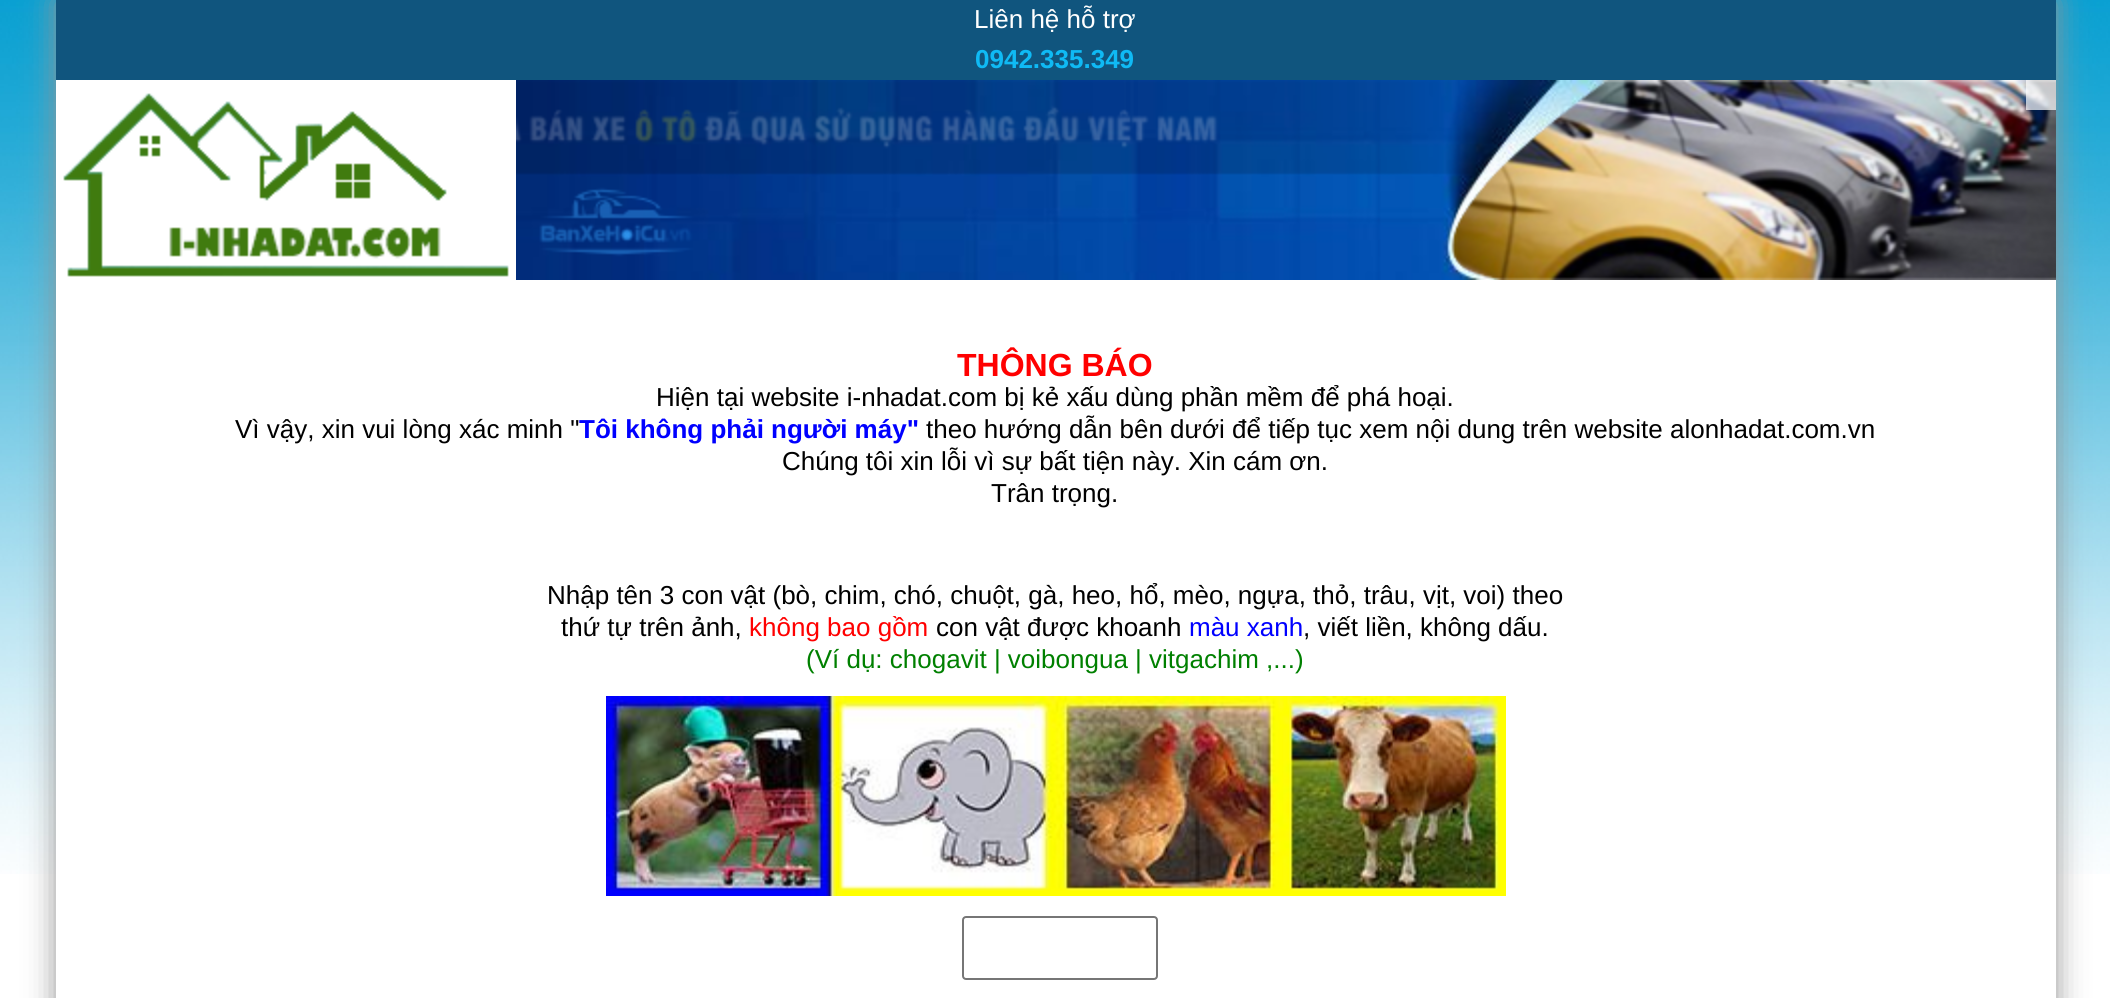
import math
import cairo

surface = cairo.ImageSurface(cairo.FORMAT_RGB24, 2110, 998)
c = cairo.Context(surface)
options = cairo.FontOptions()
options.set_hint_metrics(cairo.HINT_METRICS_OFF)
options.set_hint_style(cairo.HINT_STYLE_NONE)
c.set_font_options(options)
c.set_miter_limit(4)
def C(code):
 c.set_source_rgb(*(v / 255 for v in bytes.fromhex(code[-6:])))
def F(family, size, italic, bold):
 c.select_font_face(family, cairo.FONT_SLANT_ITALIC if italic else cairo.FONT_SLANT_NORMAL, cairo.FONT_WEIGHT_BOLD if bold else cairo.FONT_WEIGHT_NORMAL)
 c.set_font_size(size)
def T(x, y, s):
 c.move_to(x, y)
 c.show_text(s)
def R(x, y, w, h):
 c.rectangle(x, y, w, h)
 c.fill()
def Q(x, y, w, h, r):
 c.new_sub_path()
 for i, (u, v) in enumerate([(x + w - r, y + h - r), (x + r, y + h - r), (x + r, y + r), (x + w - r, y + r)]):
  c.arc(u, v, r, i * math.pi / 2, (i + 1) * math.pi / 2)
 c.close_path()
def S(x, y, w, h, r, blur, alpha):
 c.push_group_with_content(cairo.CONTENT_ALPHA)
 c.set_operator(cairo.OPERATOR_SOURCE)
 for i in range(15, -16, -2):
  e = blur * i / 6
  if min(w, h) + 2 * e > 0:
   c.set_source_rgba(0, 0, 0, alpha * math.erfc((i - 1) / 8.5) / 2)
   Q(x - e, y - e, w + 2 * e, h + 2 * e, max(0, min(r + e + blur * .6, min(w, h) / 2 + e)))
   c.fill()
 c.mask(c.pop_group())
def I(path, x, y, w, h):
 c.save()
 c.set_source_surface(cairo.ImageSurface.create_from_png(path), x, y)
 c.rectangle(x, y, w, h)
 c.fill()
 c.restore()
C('ffffff')
c.paint()
I('1.png',0,0,2110,874)
C('969696')
S(56,0,2000,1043,0,15,1)
C('ffffff')
R(56,80,2000,918)
C('10557e')
R(56,0,2000,80)
F('Liberation Sans',26,0,0)
C('ffffff')
T(974,28,'Liên hệ hỗ trợ')
F('Liberation Sans',26,0,1)
C('0fbaf5')
T(975,68,'0942.335.349')
I('2.png',63,93,446,184)
I('3.png',516,80,1540,200)
c.set_source_rgba(1,1,1,0.7)
R(2026,80,30,30)
F('Liberation Sans',32,0,1)
C('ff0000')
T(957,376,'THÔNG BÁO')
F('Liberation Sans',26,0,0)
C('000000')
T(656,406,'Hiện tại website i-nhadat.com bị kẻ xấu dùng phần mềm để phá hoại.')
T(235,438,'Vì vậy, xin vui lòng xác minh "')
F('Liberation Sans',26,0,1)
C('0000ff')
T(579,438,'Tôi không phải người máy"')
F('Liberation Sans',26,0,0)
C('000000')
T(926,438,'theo hướng dẫn bên dưới để tiếp tục xem nội dung trên website alonhadat.com.vn')
T(782,470,'Chúng tôi xin lỗi vì sự bất tiện này. Xin cám ơn.')
T(991,502,'Trân trọng.')
T(547,604,'Nhập tên 3 con vật (bò, chim, chó, chuột, gà, heo, hổ, mèo, ngựa, thỏ, trâu, vịt, voi) theo')
T(561,636,'thứ tự trên ảnh,')
C('ff0000')
T(749,636,'không bao gồm')
C('000000')
T(936,636,'con vật được khoanh')
C('0000ff')
T(1189,636,'màu xanh')
C('000000')
T(1303,636,', viết liền, không dấu.')
C('008000')
T(806,668,'(Ví dụ: chogavit | voibongua | vitgachim ,...)')
I('4.png',606,696,900,200)
Q(963,917,194,62,3)
C('767676')
c.stroke()
surface.write_to_png('o.png')
